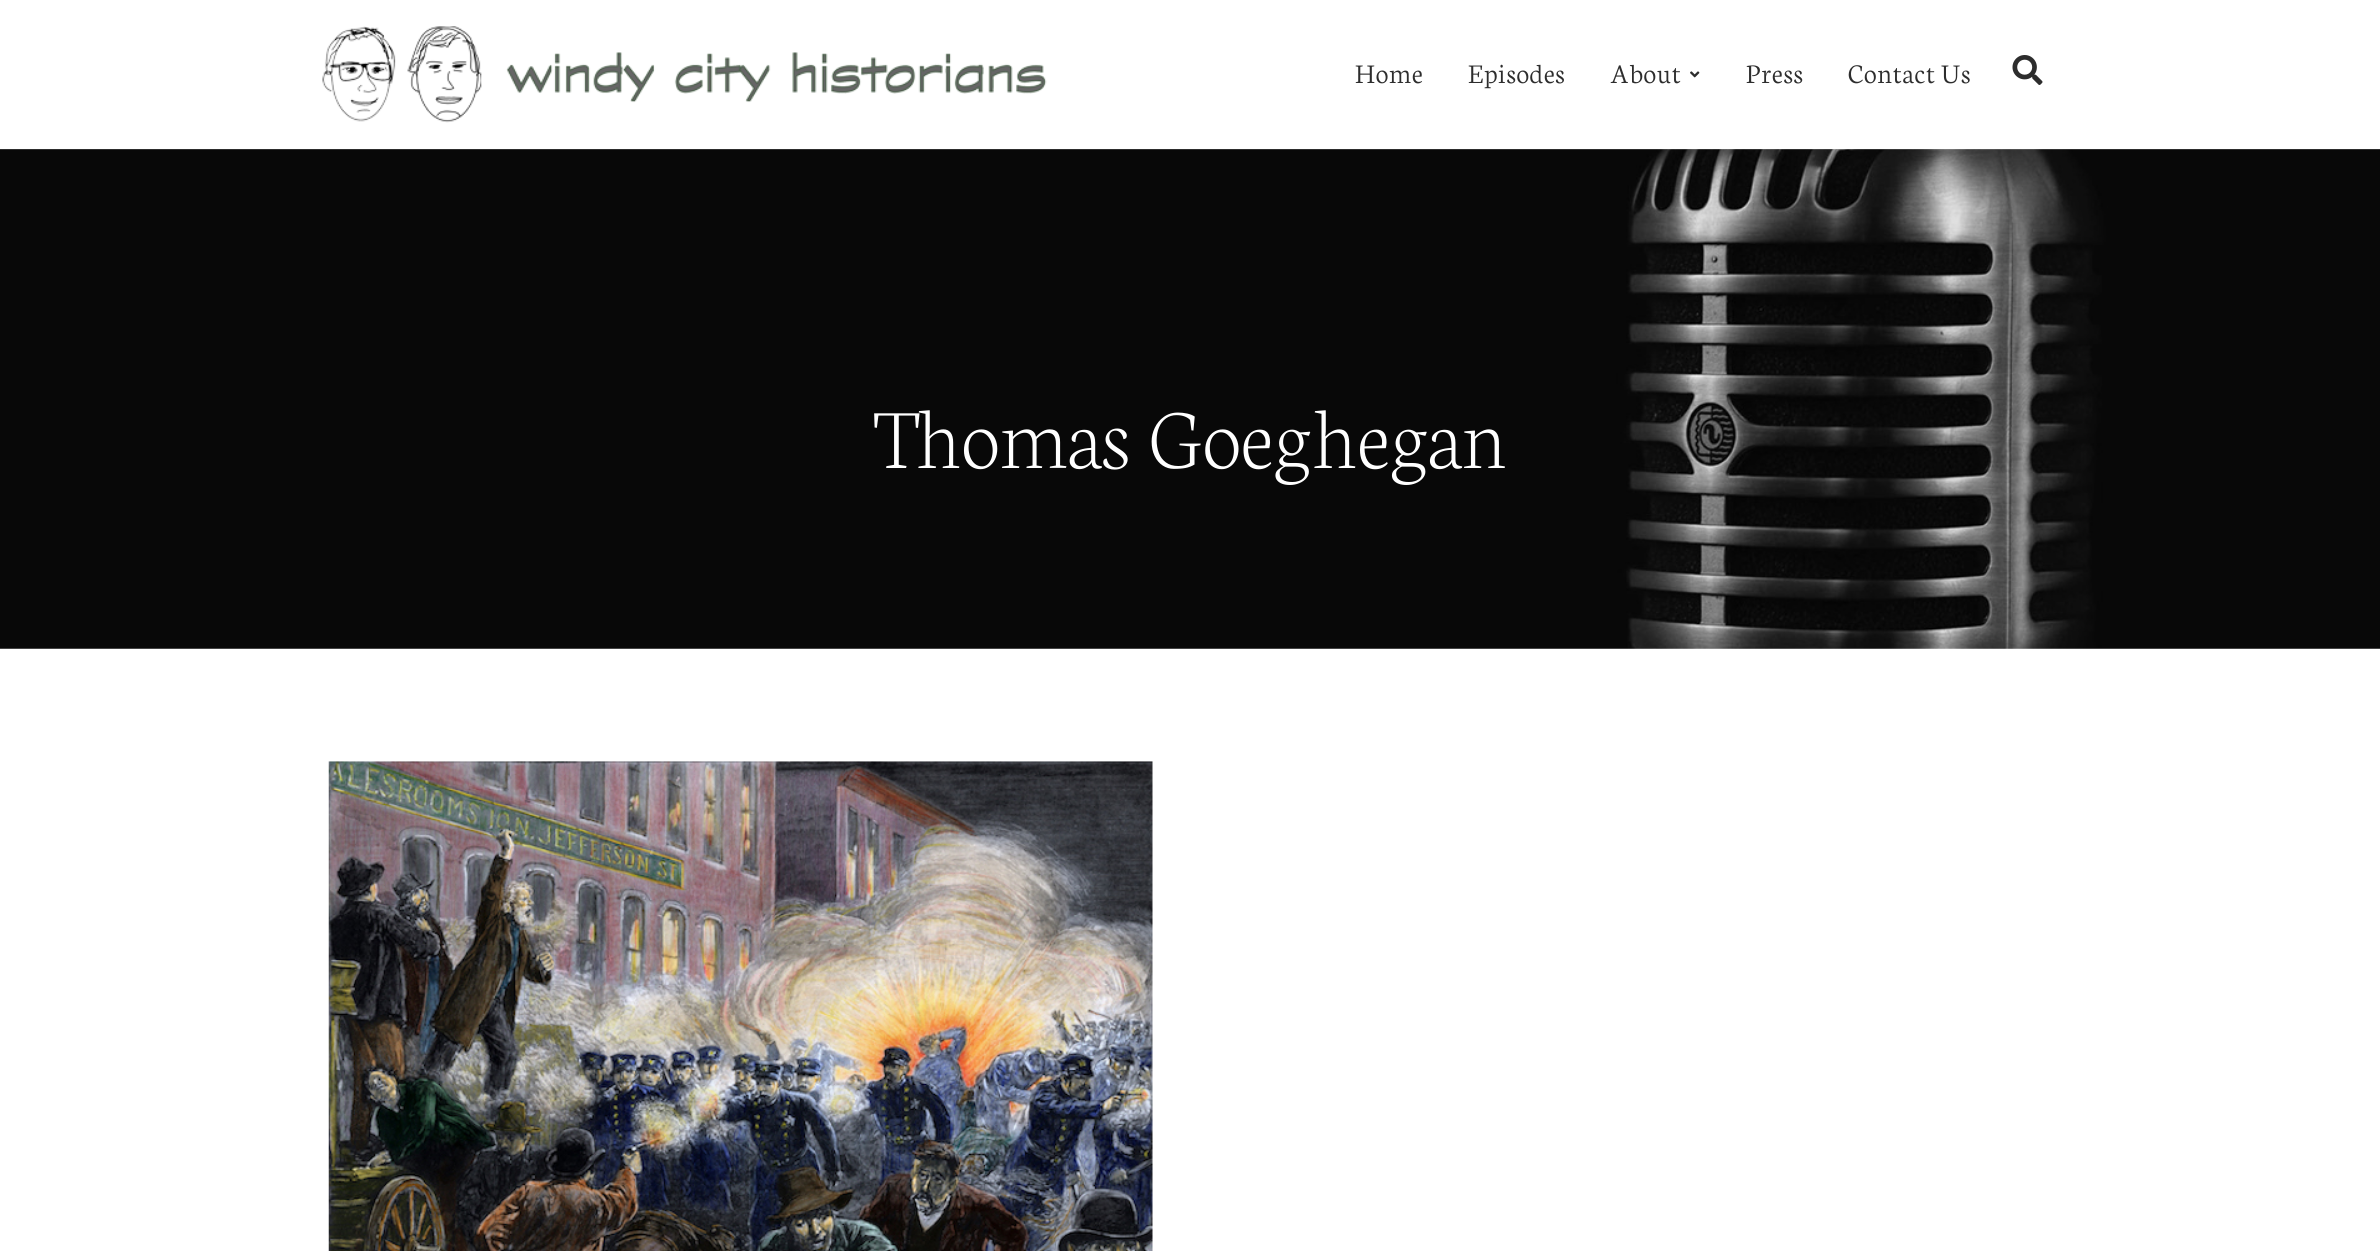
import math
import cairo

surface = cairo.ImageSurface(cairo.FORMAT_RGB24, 2380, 1251)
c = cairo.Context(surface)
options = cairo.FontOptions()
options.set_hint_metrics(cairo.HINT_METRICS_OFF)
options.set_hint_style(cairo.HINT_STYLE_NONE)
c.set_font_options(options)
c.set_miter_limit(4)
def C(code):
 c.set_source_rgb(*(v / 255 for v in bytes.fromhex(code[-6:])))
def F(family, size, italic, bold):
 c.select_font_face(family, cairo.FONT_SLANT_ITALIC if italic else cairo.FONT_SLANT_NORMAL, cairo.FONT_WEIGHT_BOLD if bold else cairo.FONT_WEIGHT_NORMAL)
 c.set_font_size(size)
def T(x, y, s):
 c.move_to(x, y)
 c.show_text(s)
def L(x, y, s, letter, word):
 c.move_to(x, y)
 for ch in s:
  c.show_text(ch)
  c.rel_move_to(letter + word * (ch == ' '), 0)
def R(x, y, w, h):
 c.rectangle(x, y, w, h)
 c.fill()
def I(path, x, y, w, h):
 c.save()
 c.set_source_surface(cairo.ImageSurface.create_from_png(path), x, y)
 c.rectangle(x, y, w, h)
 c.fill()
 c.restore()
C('ffffff')
c.paint()
I('1.png',322,26,725,97)
F('Neuton Light',28.75,0,0)
C('2d2d2d')
L(1355,83,'Home',.6,0)
L(1468,83,'Episodes',.6,0)
L(1610,83,'About',.6,0)
I('2.png',1690,71,10,7)
L(1746,83,'Press',.6,0)
L(1848,83,'Contact Us',.6,0)
I('3.png',2012,55,31,30)
I('4.png',0,149,2380,500)
c.set_source_rgba(1,1,1,0.15)
R(0,149,2380,1)
F('Neuton ExtraLight',90,0,0)
C('ffffff')
T(872,468,'Thomas Goeghegan')
I('5.png',328,761,825,490)
surface.write_to_png('o.png')
